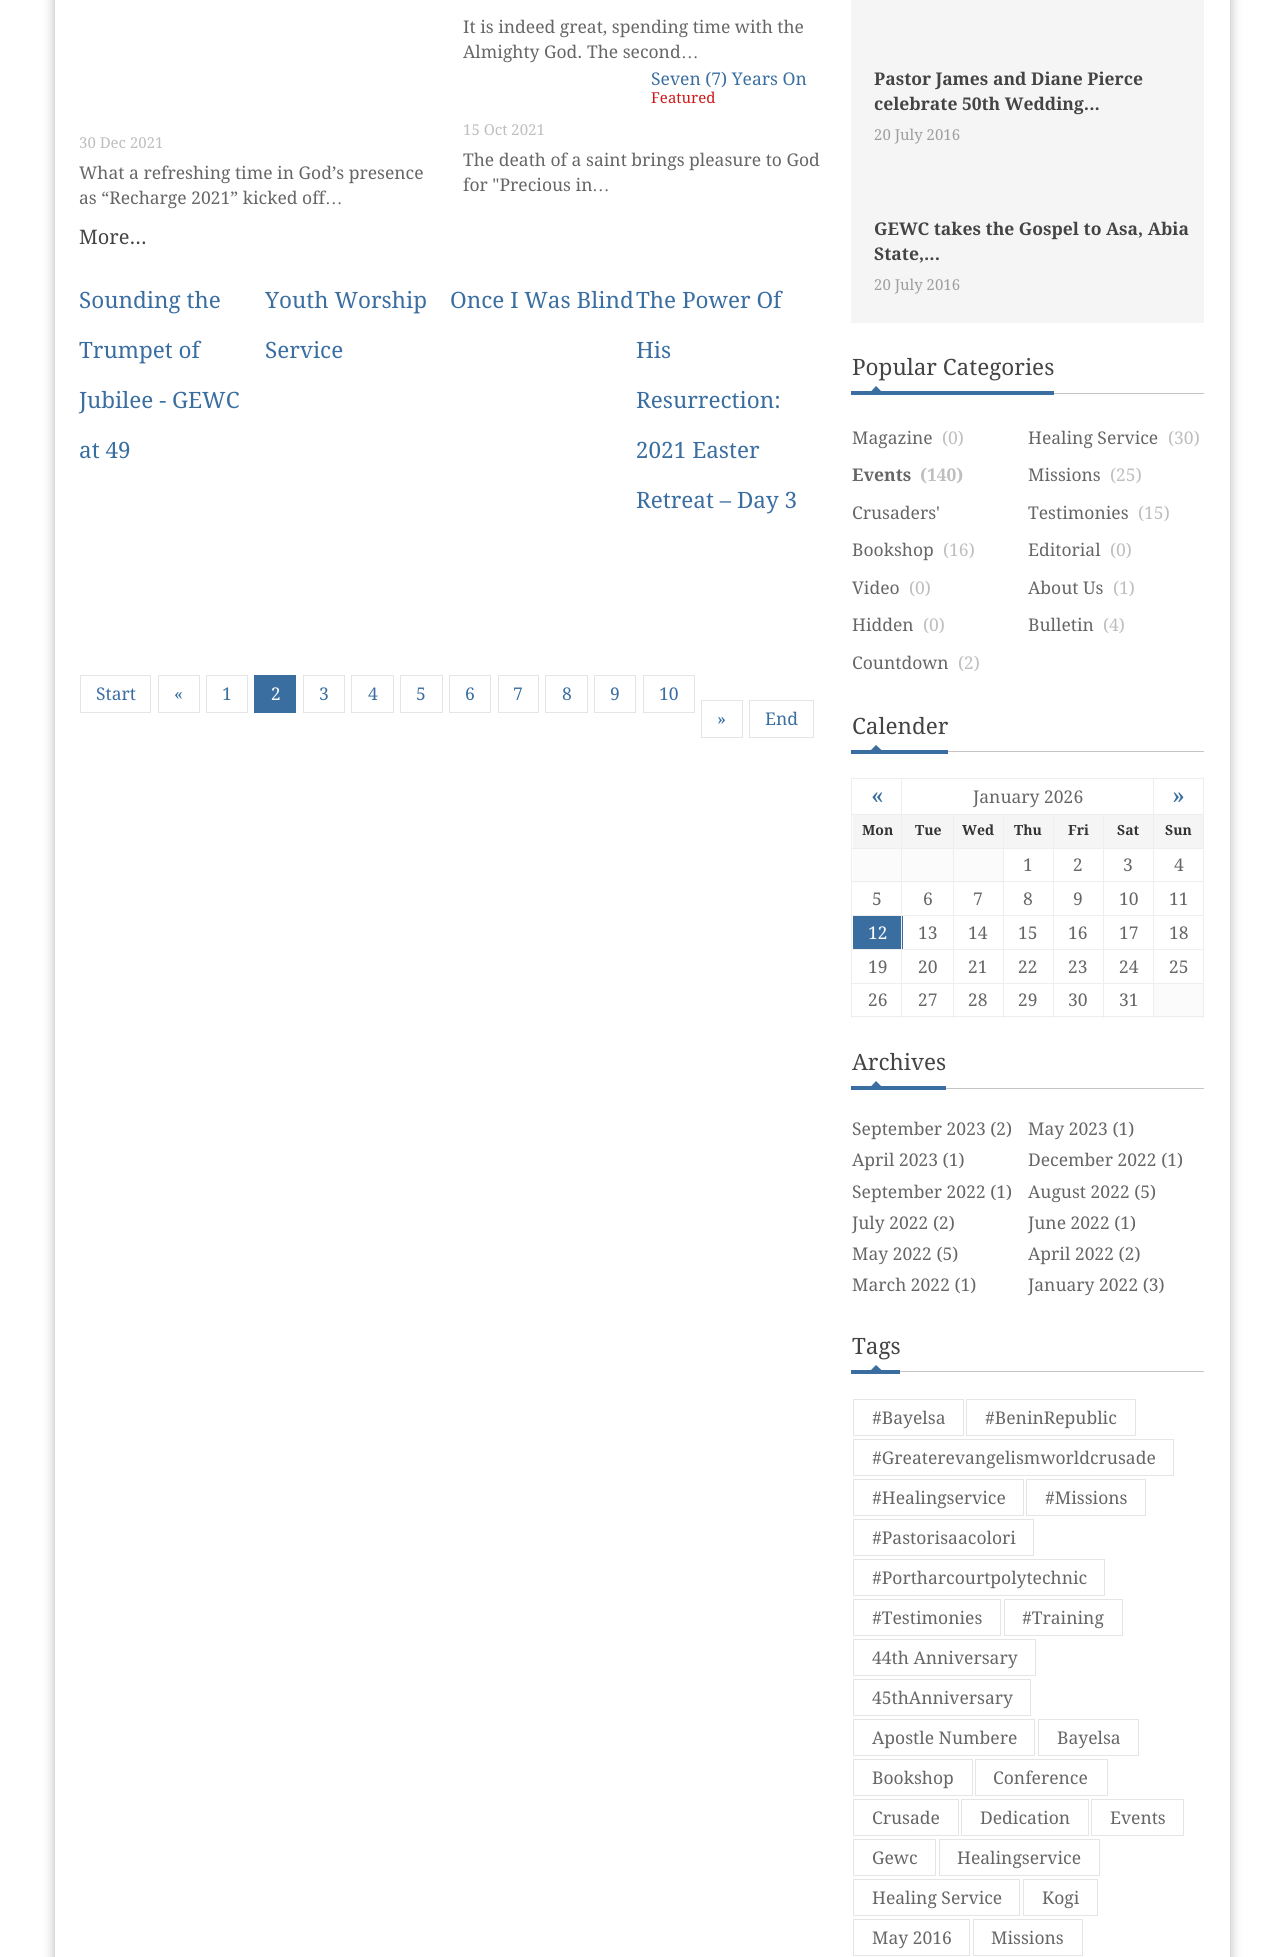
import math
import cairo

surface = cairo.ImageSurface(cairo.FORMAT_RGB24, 1283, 1957)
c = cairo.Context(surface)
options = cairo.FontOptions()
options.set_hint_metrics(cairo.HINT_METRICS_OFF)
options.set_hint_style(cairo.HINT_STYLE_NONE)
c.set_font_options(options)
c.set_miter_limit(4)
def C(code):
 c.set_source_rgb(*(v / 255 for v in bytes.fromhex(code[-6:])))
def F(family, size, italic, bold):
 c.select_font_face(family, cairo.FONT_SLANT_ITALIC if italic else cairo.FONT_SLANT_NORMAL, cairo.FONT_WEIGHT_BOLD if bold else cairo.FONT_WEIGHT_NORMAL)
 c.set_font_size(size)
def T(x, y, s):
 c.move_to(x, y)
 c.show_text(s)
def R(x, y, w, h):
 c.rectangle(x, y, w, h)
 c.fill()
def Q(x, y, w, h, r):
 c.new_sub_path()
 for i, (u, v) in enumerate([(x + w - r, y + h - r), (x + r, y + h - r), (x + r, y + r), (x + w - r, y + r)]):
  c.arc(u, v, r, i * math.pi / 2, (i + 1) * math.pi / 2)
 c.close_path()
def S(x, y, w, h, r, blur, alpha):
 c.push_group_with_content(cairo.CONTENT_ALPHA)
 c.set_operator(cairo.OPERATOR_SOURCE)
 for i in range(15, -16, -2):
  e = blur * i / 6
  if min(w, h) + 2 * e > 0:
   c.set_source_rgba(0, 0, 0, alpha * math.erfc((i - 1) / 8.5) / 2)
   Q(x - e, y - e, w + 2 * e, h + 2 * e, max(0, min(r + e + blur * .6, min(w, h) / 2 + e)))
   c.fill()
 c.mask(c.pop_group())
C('ffffff')
c.paint()
c.save()
c.set_fill_rule(cairo.FILL_RULE_EVEN_ODD)
c.new_path()
c.move_to(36,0)
c.line_to(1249,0)
c.line_to(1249,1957)
c.line_to(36,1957)
c.close_path()
c.move_to(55,-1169)
c.line_to(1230,-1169)
c.line_to(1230,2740)
c.line_to(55,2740)
c.close_path()
c.clip()
C('000000')
S(55,-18,1175,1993,0,6,.3)
c.restore()
F('Droid Serif',17.5,0,0)
C('666666')
T(463,33,'It is indeed great, spending time with the')
T(463,58,'Almighty God. The second')
F('Liberation Serif',17.5,0,0)
T(681,58,'…')
F('Droid Serif',15,0,0)
C('bebebe')
T(79,148,'30 Dec 2021')
F('Droid Serif',17.5,0,0)
C('666666')
T(79,179,'What a refreshing time in God’s presence')
T(79,204,'as “Recharge 2021” kicked off')
F('Liberation Serif',17.5,0,0)
T(325,204,'…')
F('Droid Serif',17.5,0,0)
C('3a6ea1')
T(651,85,'Seven (7) Years On')
F('Droid Serif',15,0,0)
C('cf1919')
T(651,103,'Featured')
C('bebebe')
T(463,135,'15 Oct 2021')
F('Droid Serif',17.5,0,0)
C('666666')
T(463,166,'The death of a saint brings pleasure to God')
T(463,191,'for "Precious in')
F('Liberation Serif',17.5,0,0)
T(592,191,'…')
F('Droid Serif',20,0,0)
C('444444')
T(79,244,'More...')
F('Droid Serif',22.5,0,0)
C('3a6ea1')
T(79,308,'Sounding the')
T(79,358,'Trumpet of')
T(79,408,'Jubilee - GEWC')
T(79,458,'at 49')
T(265,308,'Youth Worship')
T(265,358,'Service')
T(450,308,'Once I Was Blind')
T(636,308,'The Power Of')
T(636,358,'His')
T(636,408,'Resurrection:')
T(636,458,'2021 Easter')
T(636,508,'Retreat – Day 3')
c.rectangle(80.5,675.5,70,37)
C('e5e5e5')
c.set_line_width(1)
c.stroke()
F('Droid Serif',17.5,0,0)
C('3a6ea1')
T(96,700,'Start')
c.rectangle(158.5,675.5,41,37)
C('e5e5e5')
c.stroke()
C('3a6ea1')
T(174,700,'«')
c.rectangle(206.5,675.5,41,37)
C('e5e5e5')
c.stroke()
C('3a6ea1')
T(222,700,'1')
R(254,675,42,38)
C('ffffff')
T(271,700,'2')
c.rectangle(303.5,675.5,41,37)
C('e5e5e5')
c.stroke()
C('3a6ea1')
T(319,700,'3')
c.rectangle(351.5,675.5,42,37)
C('e5e5e5')
c.stroke()
C('3a6ea1')
T(368,700,'4')
c.rectangle(400.5,675.5,42,37)
C('e5e5e5')
c.stroke()
C('3a6ea1')
T(416,700,'5')
c.rectangle(449.5,675.5,41,37)
C('e5e5e5')
c.stroke()
C('3a6ea1')
T(465,700,'6')
c.rectangle(498.5,675.5,40,37)
C('e5e5e5')
c.stroke()
C('3a6ea1')
T(513,700,'7')
c.rectangle(545.5,675.5,42,37)
C('e5e5e5')
c.stroke()
C('3a6ea1')
T(562,700,'8')
c.rectangle(594.5,675.5,41,37)
C('e5e5e5')
c.stroke()
C('3a6ea1')
T(610,700,'9')
c.rectangle(643.5,675.5,51,37)
C('e5e5e5')
c.stroke()
C('3a6ea1')
T(659,700,'10')
c.rectangle(701.5,700.5,41,37)
C('e5e5e5')
c.stroke()
C('3a6ea1')
T(717,725,'»')
c.rectangle(749.5,700.5,64,37)
C('e5e5e5')
c.stroke()
C('3a6ea1')
T(765,725,'End')
C('f5f5f5')
R(851,0,353,323)
F('Droid Serif',17.5,0,1)
C('444444')
T(874,85,'Pastor James and Diane Pierce')
T(874,110,'celebrate 50th Wedding...')
F('Droid Serif',15,0,0)
C('9e9e9e')
T(874,140,'20 July 2016')
F('Droid Serif',17.5,0,1)
C('444444')
T(874,235,'GEWC takes the Gospel to Asa, Abia')
T(874,260,'State,...')
F('Droid Serif',15,0,0)
C('9e9e9e')
T(874,290,'20 July 2016')
C('c4c4c4')
R(1054,393,150,1)
F('Droid Serif',22.5,0,0)
C('444444')
T(852,375,'Popular Categories')
C('3a6ea1')
R(851,391,203,4)
c.new_path()
c.move_to(882.5,392.5)
c.line_to(870,392.5)
c.line_to(876,386)
c.close_path()
c.fill()
F('Droid Serif',17.5,0,0)
C('666666')
T(852,444,'Magazine')
C('bebebe')
T(942,444,'(0)')
C('666666')
T(1028,444,'Healing Service')
C('bebebe')
T(1168,444,'(30)')
F('Droid Serif',17.5,0,1)
C('666666')
T(852,481,'Events')
C('bebebe')
T(920,481,'(140)')
F('Droid Serif',17.5,0,0)
C('666666')
T(1028,481,'Missions')
C('bebebe')
T(1110,481,'(25)')
C('666666')
T(852,519,'Crusaders\'')
T(852,556,'Bookshop')
C('bebebe')
T(943,556,'(16)')
C('666666')
T(1028,519,'Testimonies')
C('bebebe')
T(1138,519,'(15)')
C('666666')
T(1028,556,'Editorial')
C('bebebe')
T(1110,556,'(0)')
C('666666')
T(852,594,'Video')
C('bebebe')
T(909,594,'(0)')
C('666666')
T(1028,594,'About Us')
C('bebebe')
T(1113,594,'(1)')
C('666666')
T(852,631,'Hidden')
C('bebebe')
T(923,631,'(0)')
C('666666')
T(1028,631,'Bulletin')
C('bebebe')
T(1103,631,'(4)')
C('666666')
T(852,669,'Countdown')
C('bebebe')
T(958,669,'(2)')
C('c4c4c4')
R(948,751,256,1)
F('Droid Serif',22.5,0,0)
C('444444')
T(852,734,'Calender')
C('3a6ea1')
R(851,750,97,4)
c.new_path()
c.move_to(882.5,751)
c.line_to(870,751)
c.line_to(876,745)
c.close_path()
c.fill()
C('eeeeee')
R(851,778,1,240)
R(1153,778,51,1)
R(1153,814,51,1)
R(1153,848,51,1)
R(1153,881,51,1)
R(1153,915,51,1)
R(1153,949,51,1)
R(1153,983,51,1)
C('fbfbfb')
R(1154,984,49,34)
C('eeeeee')
R(1203,983,1,35)
R(1153,1016,51,1)
R(1153,983,1,35)
R(1103,983,51,1)
R(1153,949,1,35)
R(1103,949,51,1)
R(1153,915,1,35)
R(1103,915,51,1)
R(1153,881,1,35)
R(1103,881,51,1)
R(1153,848,1,35)
R(1103,848,51,1)
R(1153,814,1,35)
R(1103,814,51,1)
R(1153,778,1,37)
R(901,778,253,1)
R(1103,1016,51,1)
R(1103,983,1,35)
R(1053,983,51,1)
R(1103,949,1,35)
R(1053,949,51,1)
R(1103,915,1,35)
R(1053,915,51,1)
R(1103,881,1,35)
R(1053,881,51,1)
R(1103,848,1,35)
R(1053,848,51,1)
R(1103,814,1,35)
R(1053,814,51,1)
R(1053,1016,51,1)
R(1053,983,1,35)
R(1003,983,51,1)
R(1053,949,1,35)
R(1003,949,51,1)
R(1053,915,1,35)
R(1003,915,51,1)
R(1053,881,1,35)
R(1003,881,51,1)
R(1053,848,1,35)
R(1003,848,51,1)
R(1053,814,1,35)
R(1003,814,51,1)
C('fbfbfb')
R(954,849,49,34)
C('eeeeee')
R(1003,1016,51,1)
R(1003,983,1,35)
R(953,983,51,1)
R(1003,949,1,35)
R(953,949,51,1)
R(1003,915,1,35)
R(953,915,51,1)
R(1003,881,1,35)
R(953,881,51,1)
R(1003,848,1,35)
R(953,848,51,1)
R(1003,814,1,35)
R(953,814,51,1)
C('fbfbfb')
R(853,849,100,34)
C('eeeeee')
R(953,1016,51,1)
R(953,983,1,35)
R(901,983,53,1)
R(953,949,1,35)
R(901,949,53,1)
R(953,915,1,35)
R(901,915,53,1)
R(953,881,1,35)
R(901,881,53,1)
R(953,848,1,35)
R(901,848,53,1)
R(953,814,1,35)
R(901,814,53,1)
C('f5f5f5')
R(853,815,100,33)
C('3a6ea1')
R(853,916,50,33)
C('eeeeee')
R(901,1016,53,1)
R(901,983,1,35)
R(851,983,52,1)
R(901,949,1,35)
R(851,949,52,1)
R(901,915,1,35)
R(851,915,52,1)
R(901,881,1,35)
R(851,881,52,1)
R(901,848,1,35)
R(851,848,52,1)
R(901,814,1,35)
R(851,814,52,1)
R(901,778,1,37)
R(851,778,52,1)
F('Droid Serif',25,0,0)
C('3a6ea1')
T(871,804,'«')
F('Droid Serif',17.5,0,0)
C('666666')
T(973,803,'January 2026')
C('eeeeee')
R(1203,949,1,35)
R(1203,915,1,35)
R(1203,881,1,35)
R(1203,848,1,35)
R(1203,814,1,35)
R(1203,778,1,37)
F('Droid Serif',25,0,0)
C('3a6ea1')
T(1172,804,'»')
F('Droid Serif',14,0,1)
C('333333')
T(862,835,'Mon')
T(915,835,'Tue')
C('f5f5f5')
R(954,815,49,33)
C('333333')
T(962,835,'Wed')
C('f5f5f5')
R(1004,815,49,33)
C('333333')
T(1014,835,'Thu')
C('f5f5f5')
R(1054,815,49,33)
C('333333')
T(1068,835,'Fri')
C('f5f5f5')
R(1104,815,49,33)
C('333333')
T(1117,835,'Sat')
C('f5f5f5')
R(1154,815,49,33)
C('333333')
T(1165,835,'Sun')
F('Droid Serif',17.5,0,0)
C('666666')
T(1023,871,'1')
T(1073,871,'2')
T(1123,871,'3')
T(1174,871,'4')
T(872,905,'5')
T(923,905,'6')
T(973,905,'7')
T(1023,905,'8')
T(1073,905,'9')
T(1119,905,'10')
T(1169,905,'11')
C('ffffff')
T(868,939,'12')
C('666666')
T(918,939,'13')
T(968,939,'14')
T(1018,939,'15')
T(1068,939,'16')
T(1119,939,'17')
T(1169,939,'18')
T(868,973,'19')
T(918,973,'20')
T(968,973,'21')
T(1018,973,'22')
T(1068,973,'23')
T(1119,973,'24')
T(1169,973,'25')
C('eeeeee')
R(851,1016,52,1)
C('666666')
T(868,1006,'26')
T(918,1006,'27')
T(968,1006,'28')
T(1018,1006,'29')
T(1068,1006,'30')
T(1119,1006,'31')
C('c4c4c4')
R(946,1088,258,1)
F('Droid Serif',22.5,0,0)
C('444444')
T(852,1070,'Archives')
C('3a6ea1')
R(851,1086,95,4)
c.new_path()
c.move_to(882.5,1087.5)
c.line_to(870,1087.5)
c.line_to(876,1081)
c.close_path()
c.fill()
F('Droid Serif',17.5,0,0)
C('666666')
T(852,1135,'September 2023 (2)')
T(1028,1135,'May 2023 (1)')
T(852,1166,'April 2023 (1)')
T(1028,1166,'December 2022 (1)')
T(852,1198,'September 2022 (1)')
T(1028,1198,'August 2022 (5)')
T(852,1229,'July 2022 (2)')
T(1028,1229,'June 2022 (1)')
T(852,1260,'May 2022 (5)')
T(1028,1260,'April 2022 (2)')
T(852,1291,'March 2022 (1)')
T(1028,1291,'January 2022 (3)')
C('c4c4c4')
R(900,1371,304,1)
F('Droid Serif',22.5,0,0)
C('444444')
T(852,1354,'Tags')
C('3a6ea1')
R(851,1370,49,4)
c.new_path()
c.move_to(882.5,1371)
c.line_to(870,1371)
c.line_to(876,1365)
c.close_path()
c.fill()
c.rectangle(853.5,1399.5,110,36)
C('e5e5e5')
c.stroke()
F('Droid Serif',17.5,0,0)
C('666666')
T(872,1424,'#Bayelsa')
c.rectangle(966.5,1399.5,169,36)
C('e5e5e5')
c.stroke()
C('666666')
T(985,1424,'#BeninRepublic')
c.rectangle(853.5,1439.5,320,36)
C('e5e5e5')
c.stroke()
C('666666')
T(872,1464,'#Greaterevangelismworldcrusade')
c.rectangle(853.5,1479.5,170,36)
C('e5e5e5')
c.stroke()
C('666666')
T(872,1504,'#Healingservice')
c.rectangle(1026.5,1479.5,119,36)
C('e5e5e5')
c.stroke()
C('666666')
T(1045,1504,'#Missions')
c.rectangle(853.5,1519.5,180,36)
C('e5e5e5')
c.stroke()
C('666666')
T(872,1544,'#Pastorisaacolori')
c.rectangle(853.5,1559.5,251,36)
C('e5e5e5')
c.stroke()
C('666666')
T(872,1584,'#Portharcourtpolytechnic')
c.rectangle(853.5,1599.5,147,36)
C('e5e5e5')
c.stroke()
C('666666')
T(872,1624,'#Testimonies')
c.rectangle(1004.5,1599.5,118,36)
C('e5e5e5')
c.stroke()
C('666666')
T(1022,1624,'#Training')
c.rectangle(853.5,1639.5,182,36)
C('e5e5e5')
c.stroke()
C('666666')
T(872,1664,'44th Anniversary')
c.rectangle(853.5,1679.5,177,36)
C('e5e5e5')
c.stroke()
C('666666')
T(872,1704,'45thAnniversary')
c.rectangle(853.5,1719.5,181,36)
C('e5e5e5')
c.stroke()
C('666666')
T(872,1744,'Apostle Numbere')
c.rectangle(1038.5,1719.5,100,36)
C('e5e5e5')
c.stroke()
C('666666')
T(1057,1744,'Bayelsa')
c.rectangle(853.5,1759.5,119,36)
C('e5e5e5')
c.stroke()
C('666666')
T(872,1784,'Bookshop')
c.rectangle(975.5,1759.5,132,36)
C('e5e5e5')
c.stroke()
C('666666')
T(993,1784,'Conference')
c.rectangle(853.5,1799.5,105,36)
C('e5e5e5')
c.stroke()
C('666666')
T(872,1824,'Crusade')
c.rectangle(961.5,1799.5,127,36)
C('e5e5e5')
c.stroke()
C('666666')
T(980,1824,'Dedication')
c.rectangle(1091.5,1799.5,92,36)
C('e5e5e5')
c.stroke()
C('666666')
T(1110,1824,'Events')
c.rectangle(853.5,1839.5,82,36)
C('e5e5e5')
c.stroke()
C('666666')
T(872,1864,'Gewc')
c.rectangle(939.5,1839.5,160,36)
C('e5e5e5')
c.stroke()
C('666666')
T(957,1864,'Healingservice')
c.rectangle(853.5,1879.5,166,36)
C('e5e5e5')
c.stroke()
C('666666')
T(872,1904,'Healing Service')
c.rectangle(1023.5,1879.5,74,36)
C('e5e5e5')
c.stroke()
C('666666')
T(1042,1904,'Kogi')
c.rectangle(853.5,1919.5,116,36)
C('e5e5e5')
c.stroke()
C('666666')
T(872,1944,'May 2016')
c.rectangle(973.5,1919.5,109,36)
C('e5e5e5')
c.stroke()
C('666666')
T(991,1944,'Missions')
surface.write_to_png('o.png')
